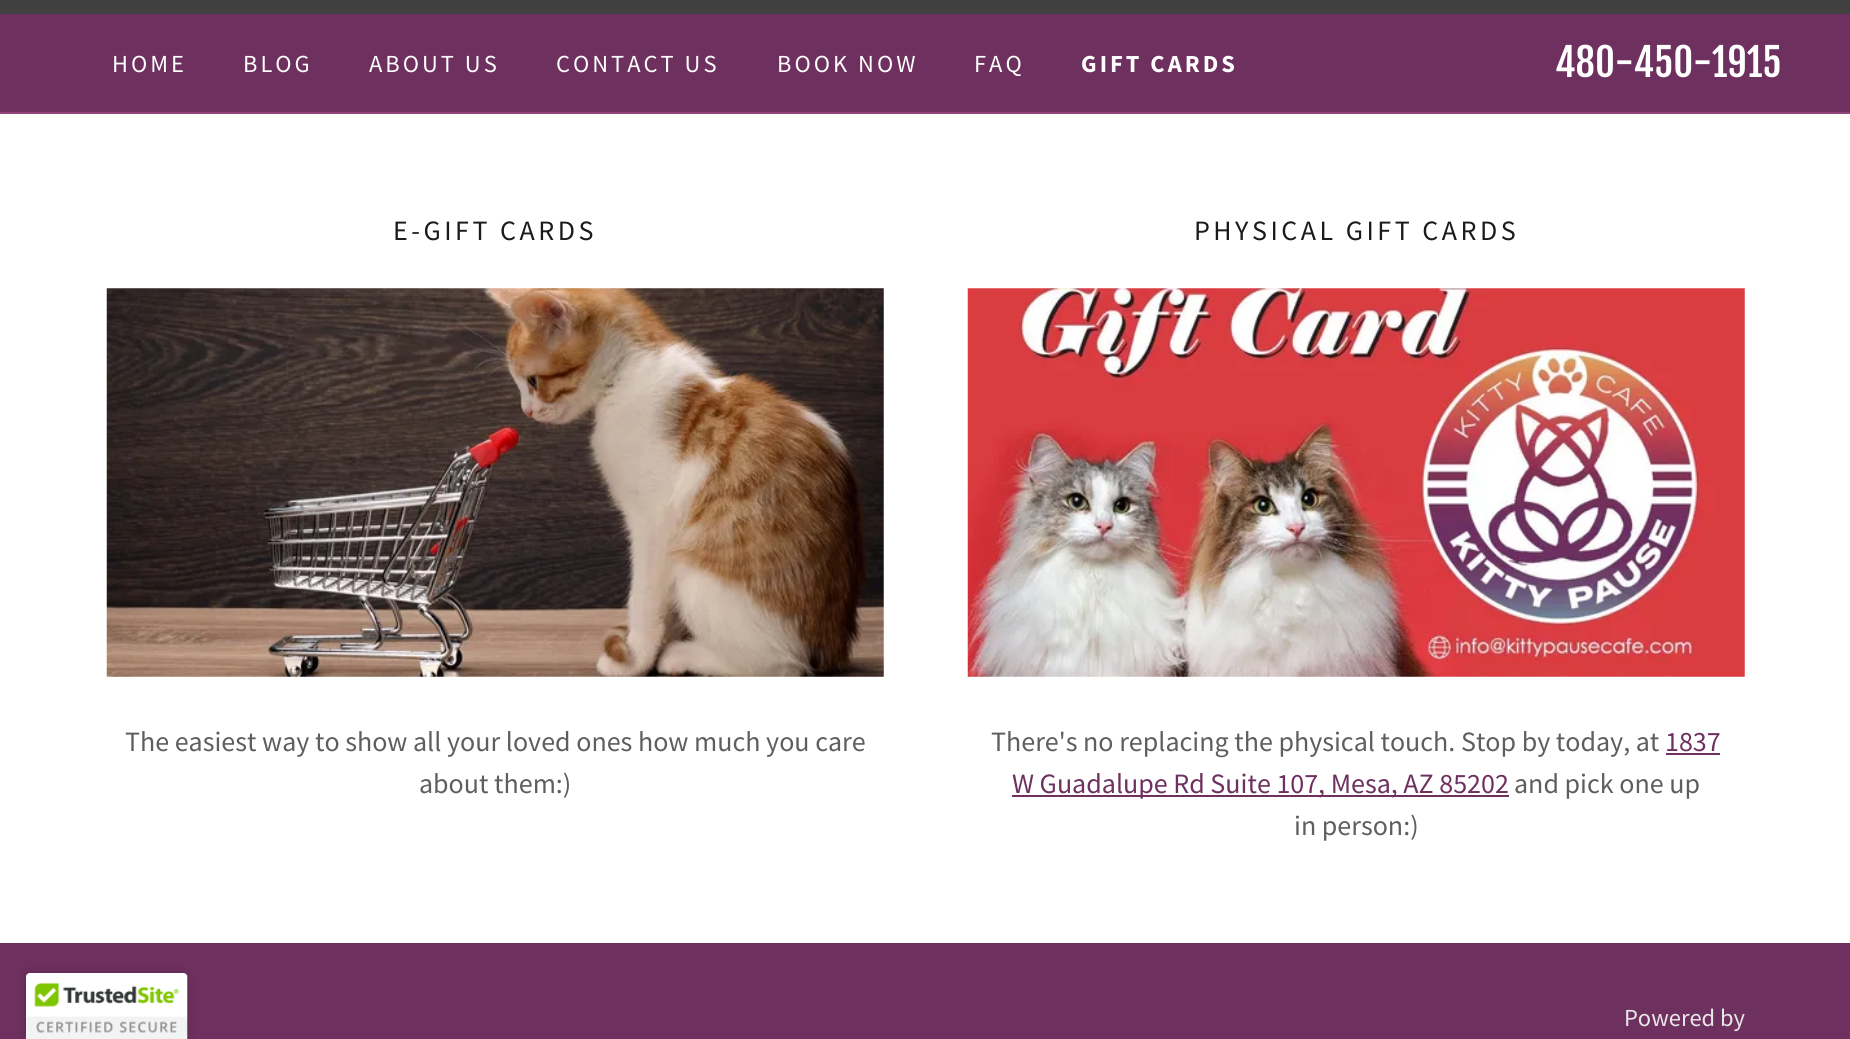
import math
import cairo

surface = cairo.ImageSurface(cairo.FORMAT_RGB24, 1850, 1039)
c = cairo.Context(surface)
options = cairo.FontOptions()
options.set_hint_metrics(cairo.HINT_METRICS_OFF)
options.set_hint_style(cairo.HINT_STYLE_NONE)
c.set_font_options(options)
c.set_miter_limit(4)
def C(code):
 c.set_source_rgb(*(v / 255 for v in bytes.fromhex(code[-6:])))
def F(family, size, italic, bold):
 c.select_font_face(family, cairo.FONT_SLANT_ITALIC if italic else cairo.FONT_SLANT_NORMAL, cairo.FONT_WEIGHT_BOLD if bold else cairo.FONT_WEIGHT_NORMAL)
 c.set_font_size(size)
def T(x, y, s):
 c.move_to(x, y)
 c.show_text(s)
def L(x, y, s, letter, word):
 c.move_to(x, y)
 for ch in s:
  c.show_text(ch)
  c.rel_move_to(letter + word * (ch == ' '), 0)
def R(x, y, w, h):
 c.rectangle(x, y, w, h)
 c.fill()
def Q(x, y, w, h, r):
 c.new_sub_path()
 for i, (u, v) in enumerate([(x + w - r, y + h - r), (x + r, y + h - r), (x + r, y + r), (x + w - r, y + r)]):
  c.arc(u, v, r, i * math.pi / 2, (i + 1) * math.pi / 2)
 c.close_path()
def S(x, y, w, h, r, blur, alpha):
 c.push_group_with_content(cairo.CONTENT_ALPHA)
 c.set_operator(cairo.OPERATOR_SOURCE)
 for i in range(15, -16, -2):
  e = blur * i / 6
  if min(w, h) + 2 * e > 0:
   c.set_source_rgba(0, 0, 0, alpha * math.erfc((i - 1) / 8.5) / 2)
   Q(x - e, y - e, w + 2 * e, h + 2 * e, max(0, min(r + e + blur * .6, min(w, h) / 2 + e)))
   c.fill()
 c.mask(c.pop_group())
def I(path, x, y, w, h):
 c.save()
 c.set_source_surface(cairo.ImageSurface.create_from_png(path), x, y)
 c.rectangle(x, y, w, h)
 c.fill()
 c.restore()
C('6e305e')
c.paint()
C('000000')
S(26,973,161,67,4,4.5,.2)
C('ffffff')
c.new_path()
c.move_to(30,973)
c.line_to(183,973)
c.curve_to(185,973,187,975,187,977)
c.line_to(187,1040)
c.line_to(26,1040)
c.line_to(26,977)
c.curve_to(26,975,28,973,30,973)
c.close_path()
c.fill()
I('1.png',26,973,162,66)
C('404040')
R(0,0,1850,14)
F('Source Sans Pro',24.5,0,0)
C('ffffff')
L(112,72,'HOME',3,0)
L(243,72,'BLOG',3,0)
L(369,72,'ABOUT US',3,0)
L(556,72,'CONTACT US',3,0)
L(777,72,'BOOK NOW',3,0)
L(974,72,'FAQ',3,0)
F('Source Sans Pro',24.5,0,1)
L(1081,72,'GIFT CARDS',3,0)
F('Fjalla One',38.5,0,0)
T(1555,77,'480-450-1915')
C('91417c')
R(0,112,1850,2)
C('ffffff')
R(0,114,1850,829)
F('Source Sans Pro',28,0,0)
C('1b1b1b')
L(393,240,'E-GIFT CARDS',3.5,0)
I('2.png',106,288,778,389)
C('5e5e5e')
T(125,751,'The easiest way to show all your loved ones how much you care')
T(419,793,'about them:)')
C('1b1b1b')
L(1194,240,'PHYSICAL GIFT CARDS',3.5,0)
I('3.png',967,288,778,389)
C('5e5e5e')
T(991,751,'There\'s no replacing the physical touch. Stop by today, at')
C('6e305e')
T(1665,751,'1837')
R(1666,753,54,2)
R(1012,795,497,2)
T(1012,793,'W Guadalupe Rd Suite 107, Mesa, AZ 85202')
C('5e5e5e')
T(1514,793,'and pick one up')
T(1294,835,'in person:)')
F('Source Sans Pro',24.5,0,0)
C('eae7e9')
T(1624,1026,'Powered by')
surface.write_to_png('o.png')
